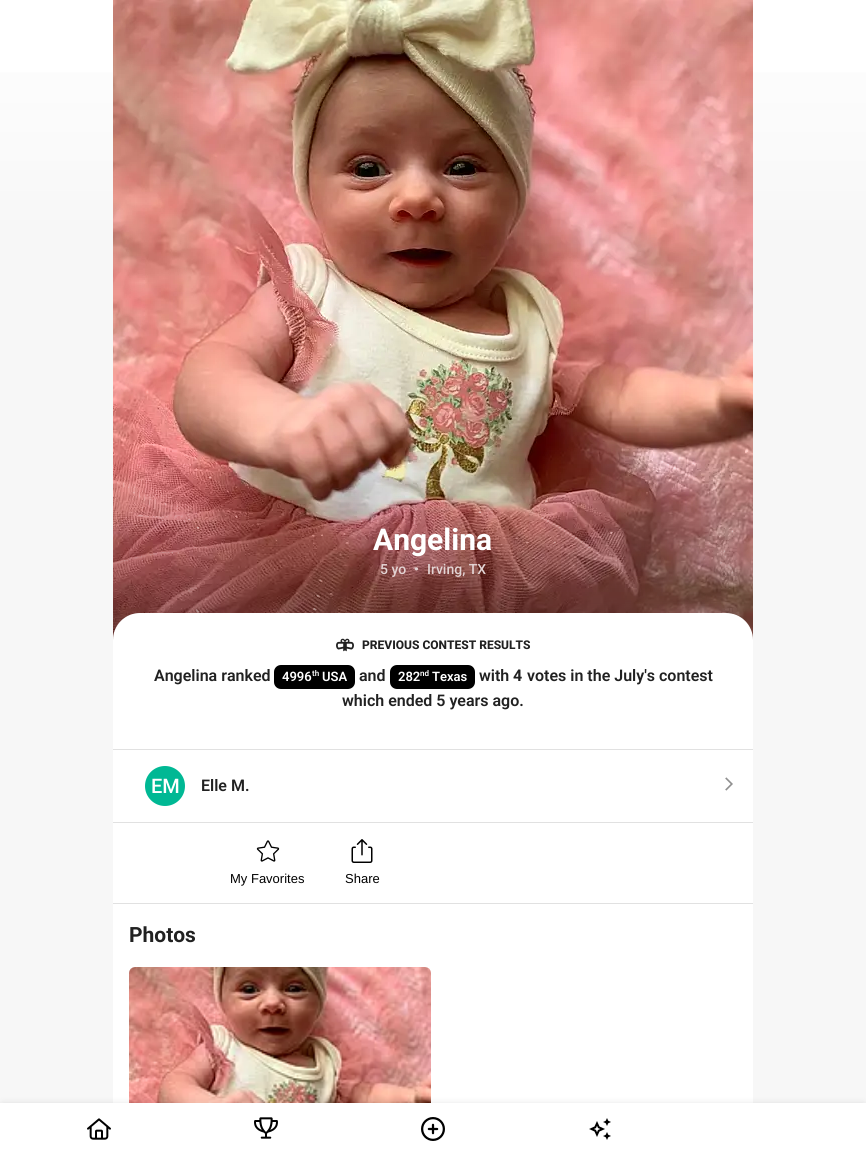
import math
import cairo

surface = cairo.ImageSurface(cairo.FORMAT_RGB24, 866, 1159)
c = cairo.Context(surface)
options = cairo.FontOptions()
options.set_hint_metrics(cairo.HINT_METRICS_OFF)
options.set_hint_style(cairo.HINT_STYLE_NONE)
c.set_font_options(options)
c.set_miter_limit(4)
def C(code):
 c.set_source_rgb(*(v / 255 for v in bytes.fromhex(code[-6:])))
def F(family, size, italic, bold):
 c.select_font_face(family, cairo.FONT_SLANT_ITALIC if italic else cairo.FONT_SLANT_NORMAL, cairo.FONT_WEIGHT_BOLD if bold else cairo.FONT_WEIGHT_NORMAL)
 c.set_font_size(size)
def T(x, y, s):
 c.move_to(x, y)
 c.show_text(s)
def R(x, y, w, h):
 c.rectangle(x, y, w, h)
 c.fill()
def Q(x, y, w, h, r):
 c.new_sub_path()
 for i, (u, v) in enumerate([(x + w - r, y + h - r), (x + r, y + h - r), (x + r, y + r), (x + w - r, y + r)]):
  c.arc(u, v, r, i * math.pi / 2, (i + 1) * math.pi / 2)
 c.close_path()
def S(x, y, w, h, r, blur, alpha):
 c.push_group_with_content(cairo.CONTENT_ALPHA)
 c.set_operator(cairo.OPERATOR_SOURCE)
 for i in range(15, -16, -2):
  e = blur * i / 6
  if min(w, h) + 2 * e > 0:
   c.set_source_rgba(0, 0, 0, alpha * math.erfc((i - 1) / 8.5) / 2)
   Q(x - e, y - e, w + 2 * e, h + 2 * e, max(0, min(r + e + blur * .6, min(w, h) / 2 + e)))
   c.fill()
 c.mask(c.pop_group())
def I(path, x, y, w, h):
 c.save()
 c.set_source_surface(cairo.ImageSurface.create_from_png(path), x, y)
 c.rectangle(x, y, w, h)
 c.fill()
 c.restore()
C('ffffff')
c.paint()
gradient = cairo.LinearGradient(433,0,433,1159)
gradient.add_color_stop_rgba(0,1,1,1,1)
gradient.add_color_stop_rgba(.2,0.969,0.969,0.969,1)
c.set_source(gradient)
R(0,72,866,1031)
C('ffffff')
R(113,640,640,463)
I('1.png',113,0,640,640)
F('Roboto',30,0,1)
T(373,550,'Angelina')
F('Roboto Medium',14,0,0)
C('e3d4d4')
T(380,574,'5 yo')
T(414,574,'•')
T(427,574,'Irving, TX')
C('ffffff')
c.new_path()
c.move_to(140,613)
c.line_to(726,613)
c.curve_to(741,613,753,625,753,640)
c.line_to(113,640)
c.curve_to(113,625,125,613,140,613)
c.close_path()
c.fill()
I('2.png',336,638,18,14)
F('Roboto ExtraBold',12,0,0)
C('212121')
T(362,649,'PREVIOUS CONTEST RESULTS')
F('Roboto SemiBold',16,0,0)
T(154,681,'Angelina ranked')
C('000000')
Q(274,665,81,24,7)
c.fill()
F('Roboto SemiBold',13,0,0)
C('ffffff')
T(282,681,'4996')
F('Roboto SemiBold',8,0,0)
T(312,676,'th')
F('Roboto SemiBold',13,0,0)
T(322,681,'USA')
F('Roboto SemiBold',16,0,0)
C('212121')
T(359,681,'and')
C('000000')
Q(390,665,85,24,7)
c.fill()
F('Roboto SemiBold',13,0,0)
C('ffffff')
T(398,681,'282')
F('Roboto SemiBold',8,0,0)
T(420,676,'nd')
F('Roboto SemiBold',13,0,0)
T(432,681,'Texas')
F('Roboto SemiBold',16,0,0)
C('212121')
T(479,681,'with')
F('Roboto',16,0,1)
T(513,681,'4')
F('Roboto SemiBold',16,0,0)
T(527,681,'votes in the July\'s contest')
T(342,706,'which ended 5 years ago.')
C('e1e1e1')
R(113,749,640,1)
C('00b894')
c.new_path()
c.arc(165,786,20,0,2 * math.pi)
c.fill()
F('Roboto Medium',20,0,0)
C('ffffff')
T(151,793,'EM')
F('Roboto SemiBold',16,0,0)
C('212121')
T(201,791,'Elle M.')
I('3.png',725,777,8,14)
C('e1e1e1')
R(113,822,640,1)
I('4.png',256,840,24,22)
F('Liberation Sans',13,0,0)
C('000000')
T(230,883,'My Favorites')
I('5.png',351,839,22,24)
T(345,883,'Share')
C('e1e1e1')
R(113,903,640,1)
F('Roboto',21,0,1)
C('212121')
T(129,942,'Photos')
I('6.png',129,967,302,136)
C('000000')
S(0,1104,866,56,3,4,.12)
C('ffffff')
R(0,1103,866,56)
I('7.png',87,1118,24,22)
I('8.png',254,1117,24,22)
I('9.png',421,1117,24,24)
I('10.png',589,1118,22,22)
surface.write_to_png('o.png')
